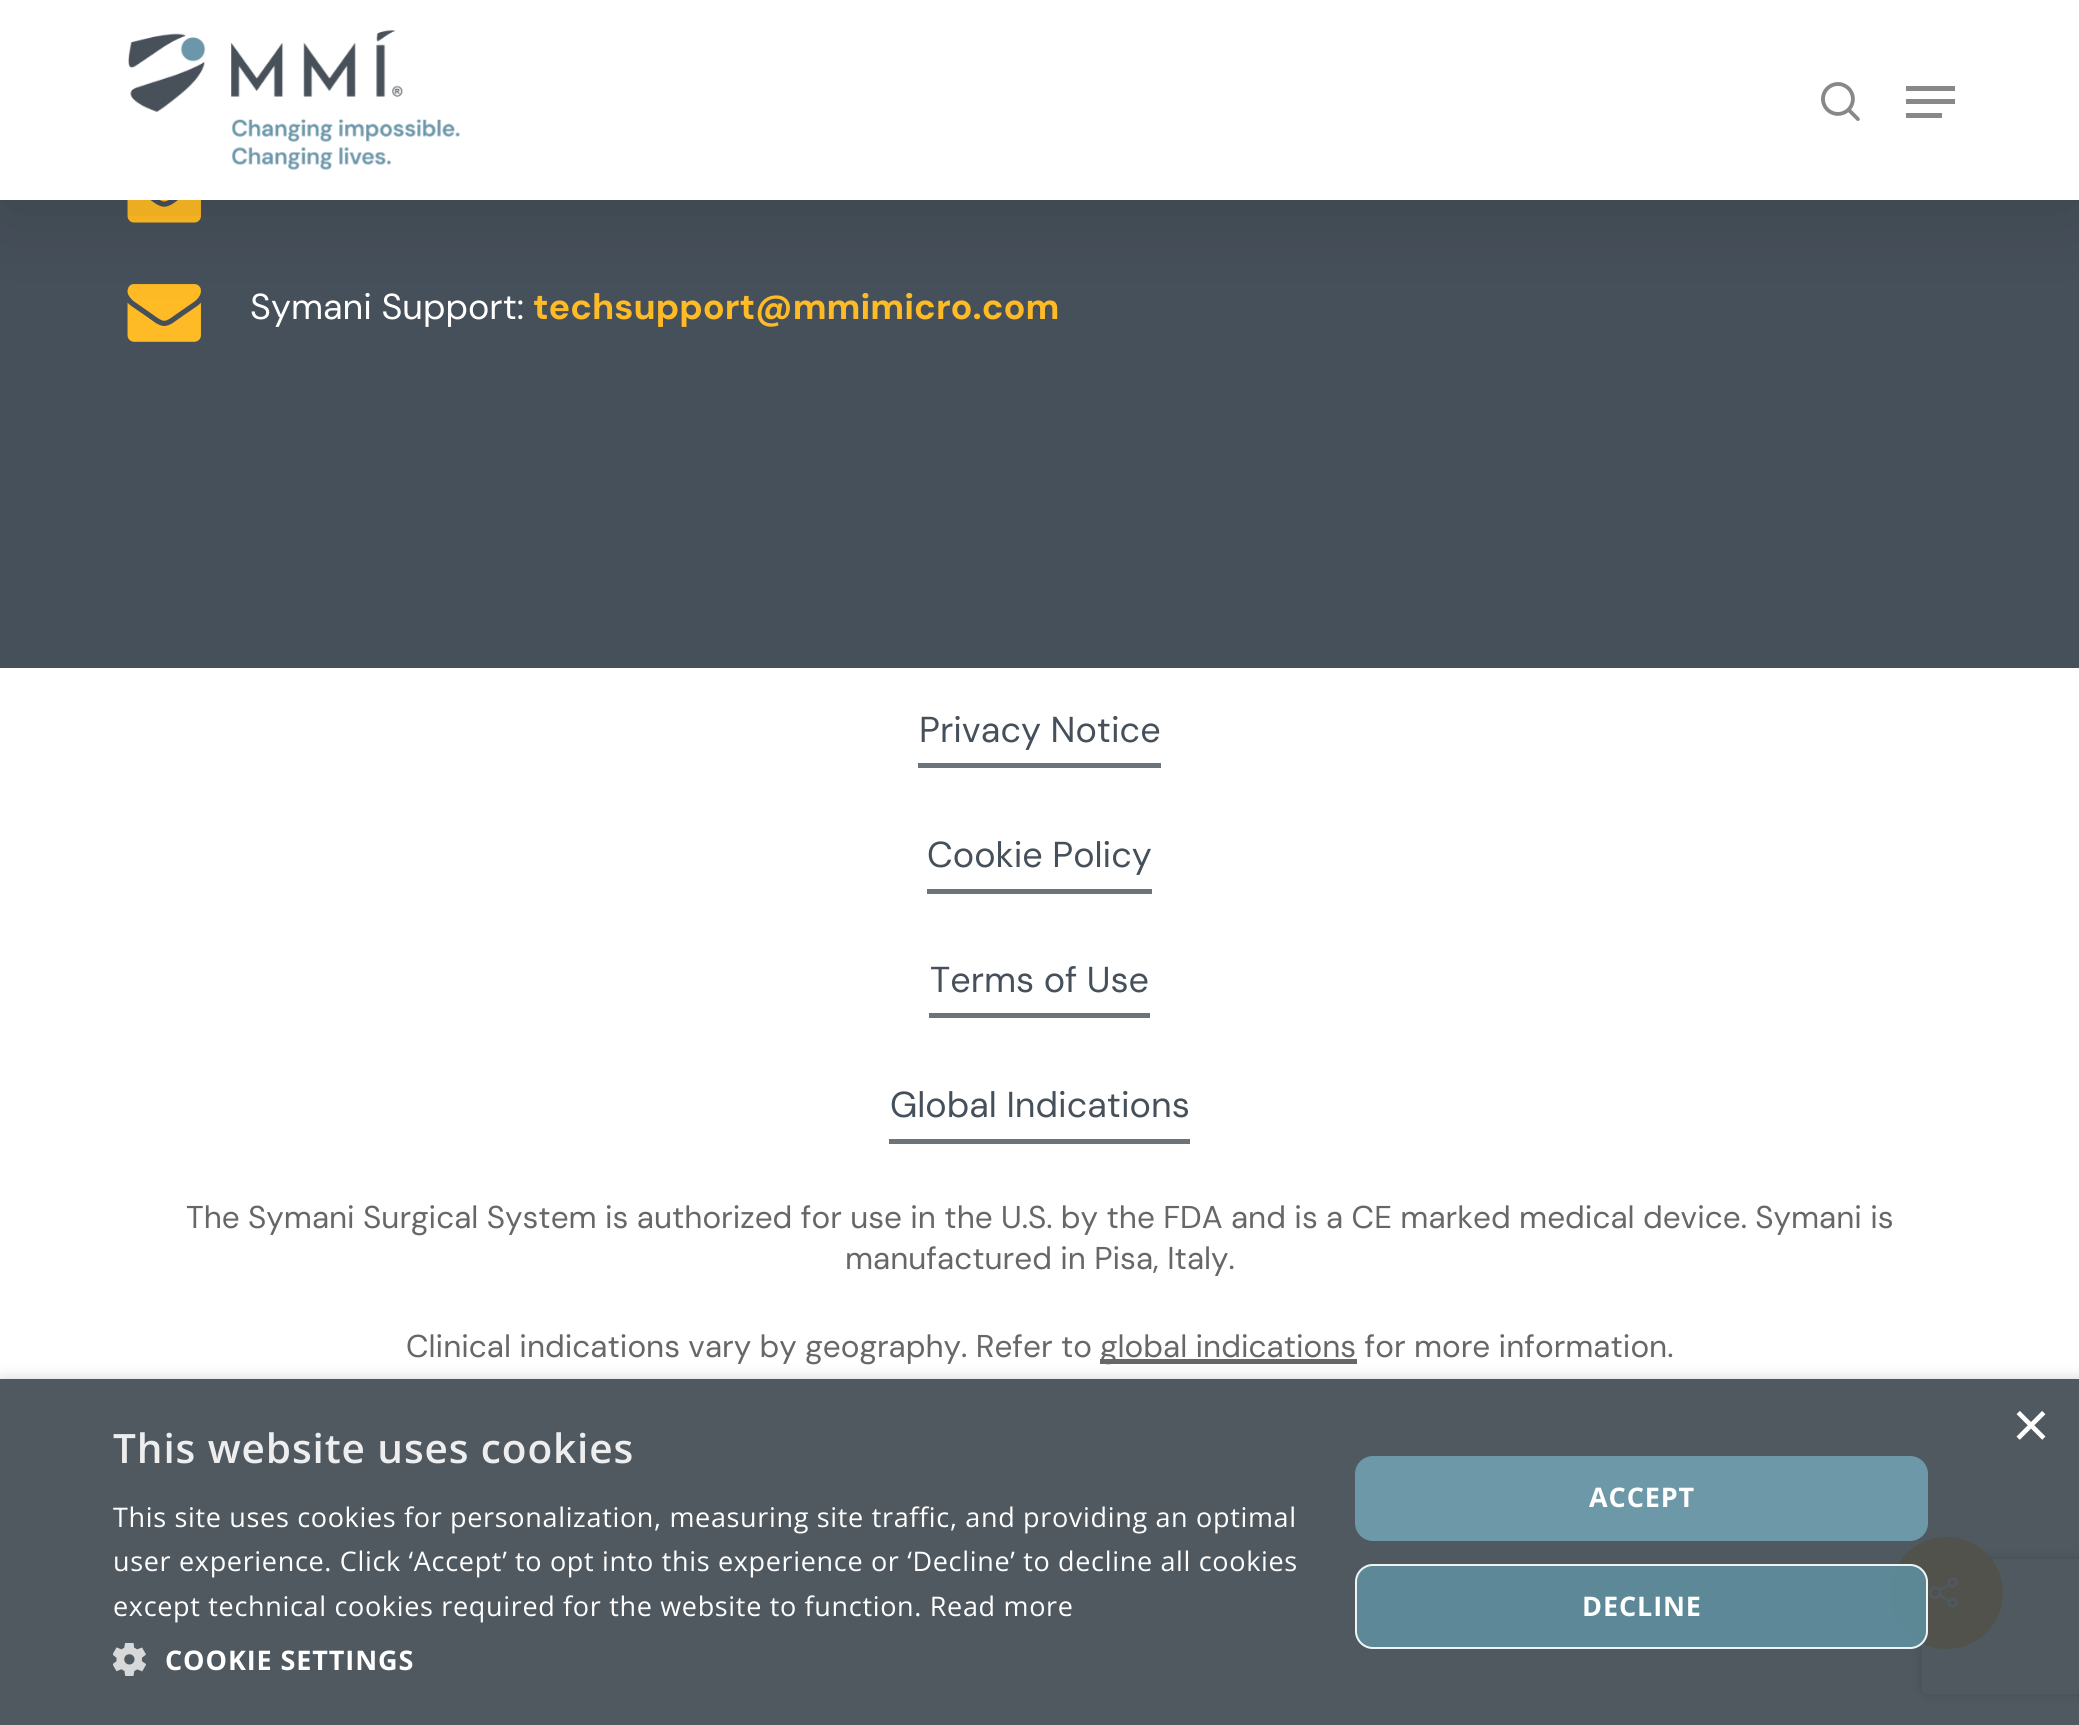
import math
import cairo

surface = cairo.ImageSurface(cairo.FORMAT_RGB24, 2079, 1725)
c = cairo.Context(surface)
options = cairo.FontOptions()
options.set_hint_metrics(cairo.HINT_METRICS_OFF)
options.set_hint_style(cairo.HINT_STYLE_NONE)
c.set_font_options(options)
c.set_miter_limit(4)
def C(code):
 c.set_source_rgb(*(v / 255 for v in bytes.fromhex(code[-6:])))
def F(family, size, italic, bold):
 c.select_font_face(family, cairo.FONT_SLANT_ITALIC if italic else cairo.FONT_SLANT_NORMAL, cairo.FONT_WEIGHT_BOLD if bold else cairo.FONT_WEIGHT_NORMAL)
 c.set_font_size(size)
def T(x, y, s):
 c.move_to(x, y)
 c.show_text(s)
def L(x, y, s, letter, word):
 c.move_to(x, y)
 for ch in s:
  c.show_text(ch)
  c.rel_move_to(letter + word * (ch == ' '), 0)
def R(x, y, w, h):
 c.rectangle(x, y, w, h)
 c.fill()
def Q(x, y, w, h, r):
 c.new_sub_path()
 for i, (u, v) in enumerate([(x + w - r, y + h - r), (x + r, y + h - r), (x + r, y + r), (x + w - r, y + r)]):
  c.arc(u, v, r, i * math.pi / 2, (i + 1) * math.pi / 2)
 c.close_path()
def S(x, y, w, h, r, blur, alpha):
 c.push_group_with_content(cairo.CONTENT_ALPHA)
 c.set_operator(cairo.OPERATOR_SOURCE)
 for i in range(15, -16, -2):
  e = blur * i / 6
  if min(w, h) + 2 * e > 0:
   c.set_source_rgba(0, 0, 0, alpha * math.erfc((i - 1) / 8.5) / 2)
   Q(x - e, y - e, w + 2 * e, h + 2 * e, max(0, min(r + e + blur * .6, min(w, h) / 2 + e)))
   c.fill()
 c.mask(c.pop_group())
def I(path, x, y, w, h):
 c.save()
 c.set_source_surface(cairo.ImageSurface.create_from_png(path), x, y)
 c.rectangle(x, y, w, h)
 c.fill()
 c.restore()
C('ffffff')
c.paint()
C('46505a')
R(0,200,2079,468)
I('3.png',127,200,74,23)
I('4.png',127,284,74,58)
C('000000')
S(0,7,2079,200,0,50.5,.15)
C('ffffff')
R(0,0,2079,200)
I('1.png',128,30,332,141)
I('2.png',1821,82,39,39)
C('888888')
R(1906,86,49,5)
R(1906,113,36,5)
R(1906,99,49,5)
F('DM Sans',36,0,0)
C('ffffff')
T(250,319,'Symani Support:')
F('DM Sans',36,0,1)
C('ffbb25')
T(533,319,'techsupport@mmimicro.com')
F('DM Sans',36,0,0)
C('46505a')
T(919,742,'Privacy Notice')
C('6b737b')
R(918,763,243,5)
C('46505a')
T(927,867,'Cookie Policy')
C('6b737b')
R(927,889,225,5)
C('46505a')
T(930,992,'Terms of Use')
C('6b737b')
R(929,1013,221,5)
C('46505a')
T(890,1117,'Global Indications')
C('6b737b')
R(889,1139,301,5)
F('DM Sans',31.5,0,0)
C('676767')
T(186,1228,'The Symani Surgical System is authorized for use in the U.S. by the FDA and is a CE marked medical device. Symani is')
T(845,1269,'manufactured in Pisa, Italy.')
T(406,1357,'Clinical indications vary by geography. Refer to')
R(1100,1359,257,5)
T(1100,1357,'global indications for more information.')
c.save()
c.set_fill_rule(cairo.FILL_RULE_EVEN_ODD)
c.new_path()
c.move_to(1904,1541)
c.line_to(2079,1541)
c.line_to(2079,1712)
c.line_to(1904,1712)
c.close_path()
c.move_to(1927,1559)
c.line_to(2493,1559)
c.curve_to(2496,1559,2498,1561,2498,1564)
c.line_to(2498,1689)
c.curve_to(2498,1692,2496,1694,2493,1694)
c.line_to(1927,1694)
c.curve_to(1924,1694,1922,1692,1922,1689)
c.line_to(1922,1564)
c.curve_to(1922,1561,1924,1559,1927,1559)
c.close_path()
c.clip()
C('808080')
S(1922,1559,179,135,5,5.5,1)
c.restore()
C('ffbb25')
Q(1890,1537,113,112,56)
c.fill()
I('5.png',1928,1577,30,31)
c.save()
c.set_fill_rule(cairo.FILL_RULE_EVEN_ODD)
c.new_path()
c.move_to(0,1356)
c.line_to(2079,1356)
c.line_to(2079,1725)
c.line_to(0,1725)
c.close_path()
c.move_to(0,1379)
c.line_to(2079,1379)
c.line_to(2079,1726)
c.line_to(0,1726)
c.close_path()
c.clip()
C('1a1a1a')
S(2,1384,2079,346,0,9,.35)
c.restore()
c.set_source_rgba(0.239,0.278,0.31,0.9)
R(0,1379,2079,346)
F('Liberation Sans',65,0,0)
C('ffffff')
T(2012,1447,'×')
F('Open Sans SemiBold',40.5,0,0)
C('eeeeef')
L(113,1463,'This website uses cookies',.9,0)
F('Open Sans',27,0,0)
C('ffffff')
L(113,1527,'This site uses cookies for personalization, measuring site traffic, and providing an optimal',.67,0)
L(113,1571,'user experience. Click ‘Accept’ to opt into this experience or ‘Decline’ to decline all cookies',.67,0)
L(113,1616,'except technical cookies required for the website to function. Read more',.67,0)
I('6.png',113,1643,33,33)
F('Open Sans',27,0,1)
L(165,1670,'COOKIE SETTINGS',.9,0)
C('6d98a8')
Q(1355,1456,573,85,18)
c.fill()
C('ffffff')
L(1589,1507,'ACCEPT',.9,0)
c.set_source_rgba(0.365,0.553,0.62,0.9)
Q(1355,1564,573,85,18)
c.fill()
Q(1356,1565,571,83,17)
c.set_source_rgba(1,1,1,0.9)
c.stroke()
C('ffffff')
L(1582,1616,'DECLINE',.9,0)
surface.write_to_png('o.png')
